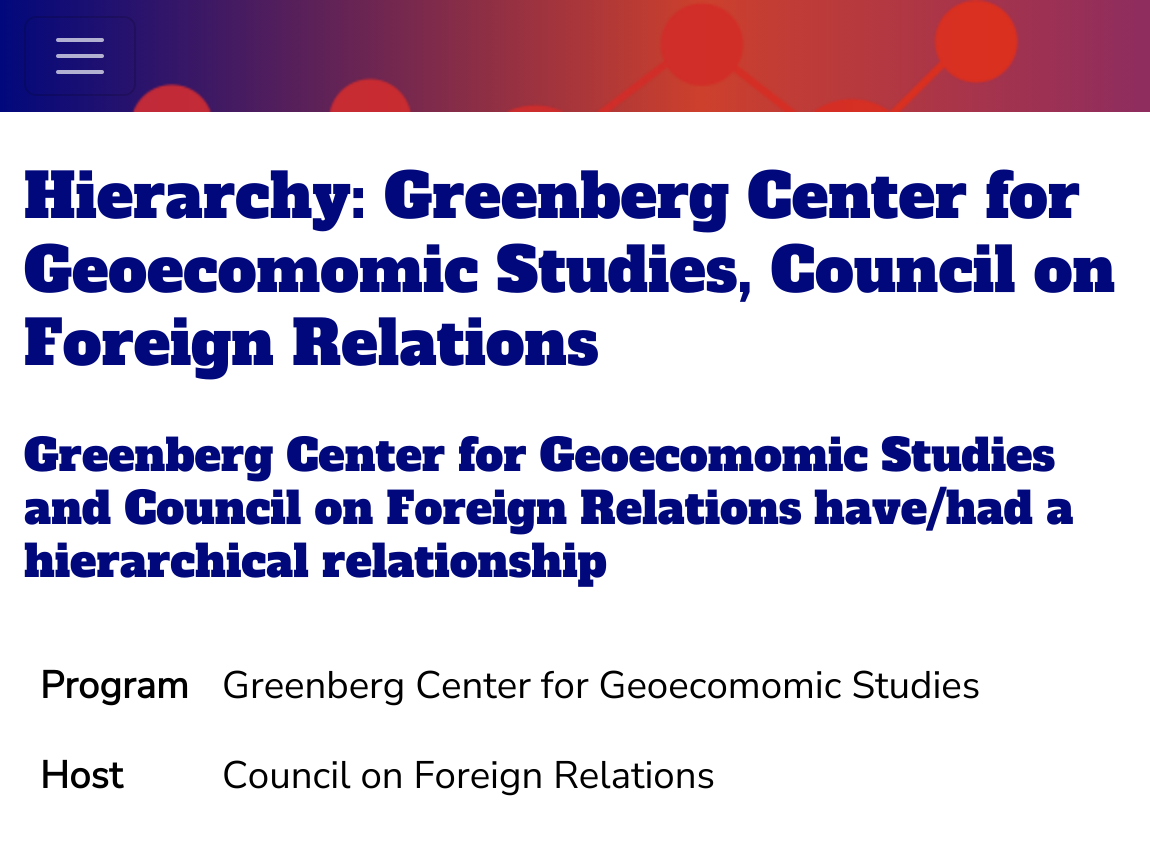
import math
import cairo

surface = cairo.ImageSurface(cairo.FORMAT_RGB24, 1150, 859)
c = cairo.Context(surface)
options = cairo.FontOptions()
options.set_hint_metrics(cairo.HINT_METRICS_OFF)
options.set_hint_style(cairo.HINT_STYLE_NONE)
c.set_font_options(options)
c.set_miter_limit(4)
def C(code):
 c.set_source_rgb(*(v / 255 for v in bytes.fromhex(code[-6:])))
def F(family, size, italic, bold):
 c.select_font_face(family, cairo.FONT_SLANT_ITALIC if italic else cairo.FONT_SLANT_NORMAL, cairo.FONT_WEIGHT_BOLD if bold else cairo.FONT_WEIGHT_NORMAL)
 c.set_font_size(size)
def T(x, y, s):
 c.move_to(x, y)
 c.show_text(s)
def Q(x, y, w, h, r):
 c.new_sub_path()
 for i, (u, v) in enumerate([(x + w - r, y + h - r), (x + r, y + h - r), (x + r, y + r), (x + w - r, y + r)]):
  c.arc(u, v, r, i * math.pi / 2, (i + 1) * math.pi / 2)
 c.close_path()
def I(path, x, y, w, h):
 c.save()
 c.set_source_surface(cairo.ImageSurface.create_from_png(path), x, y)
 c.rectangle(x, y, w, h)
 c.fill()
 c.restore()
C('ffffff')
c.paint()
I('1.png',0,0,1150,112)
Q(25,17,110,78,11)
c.set_source_rgba(0,0,0,0.15)
c.stroke()
c.new_path()
c.move_to(58,40)
c.line_to(102,40)
c.move_to(58,56)
c.line_to(102,56)
c.move_to(58,72)
c.line_to(102,72)
c.set_source_rgba(0.898,0.902,0.945,0.75)
c.set_line_width(4)
c.set_line_cap(cairo.LINE_CAP_ROUND)
c.stroke()
F('Alfa Slab One',61.25,0,0)
C('01087c')
T(24,218,'Hierarchy: Greenberg Center for')
T(24,292,'Geoecomomic Studies, Council on')
T(24,365,'Foreign Relations')
F('Alfa Slab One',44.25,0,0)
T(24,471,'Greenberg Center for Geoecomomic Studies')
T(24,524,'and Council on Foreign Relations')
T(814,524,'have/had a')
T(24,577,'hierarchical relationship')
F('Nunito Sans',38.4,0,1)
C('000000')
T(40,698,'Program')
F('Nunito Sans',38.4,0,0)
T(222,698,'Greenberg Center for Geoecomomic Studies')
F('Nunito Sans',38.4,0,1)
T(40,788,'Host')
F('Nunito Sans',38.4,0,0)
T(222,788,'Council on Foreign Relations')
surface.write_to_png('o.png')
